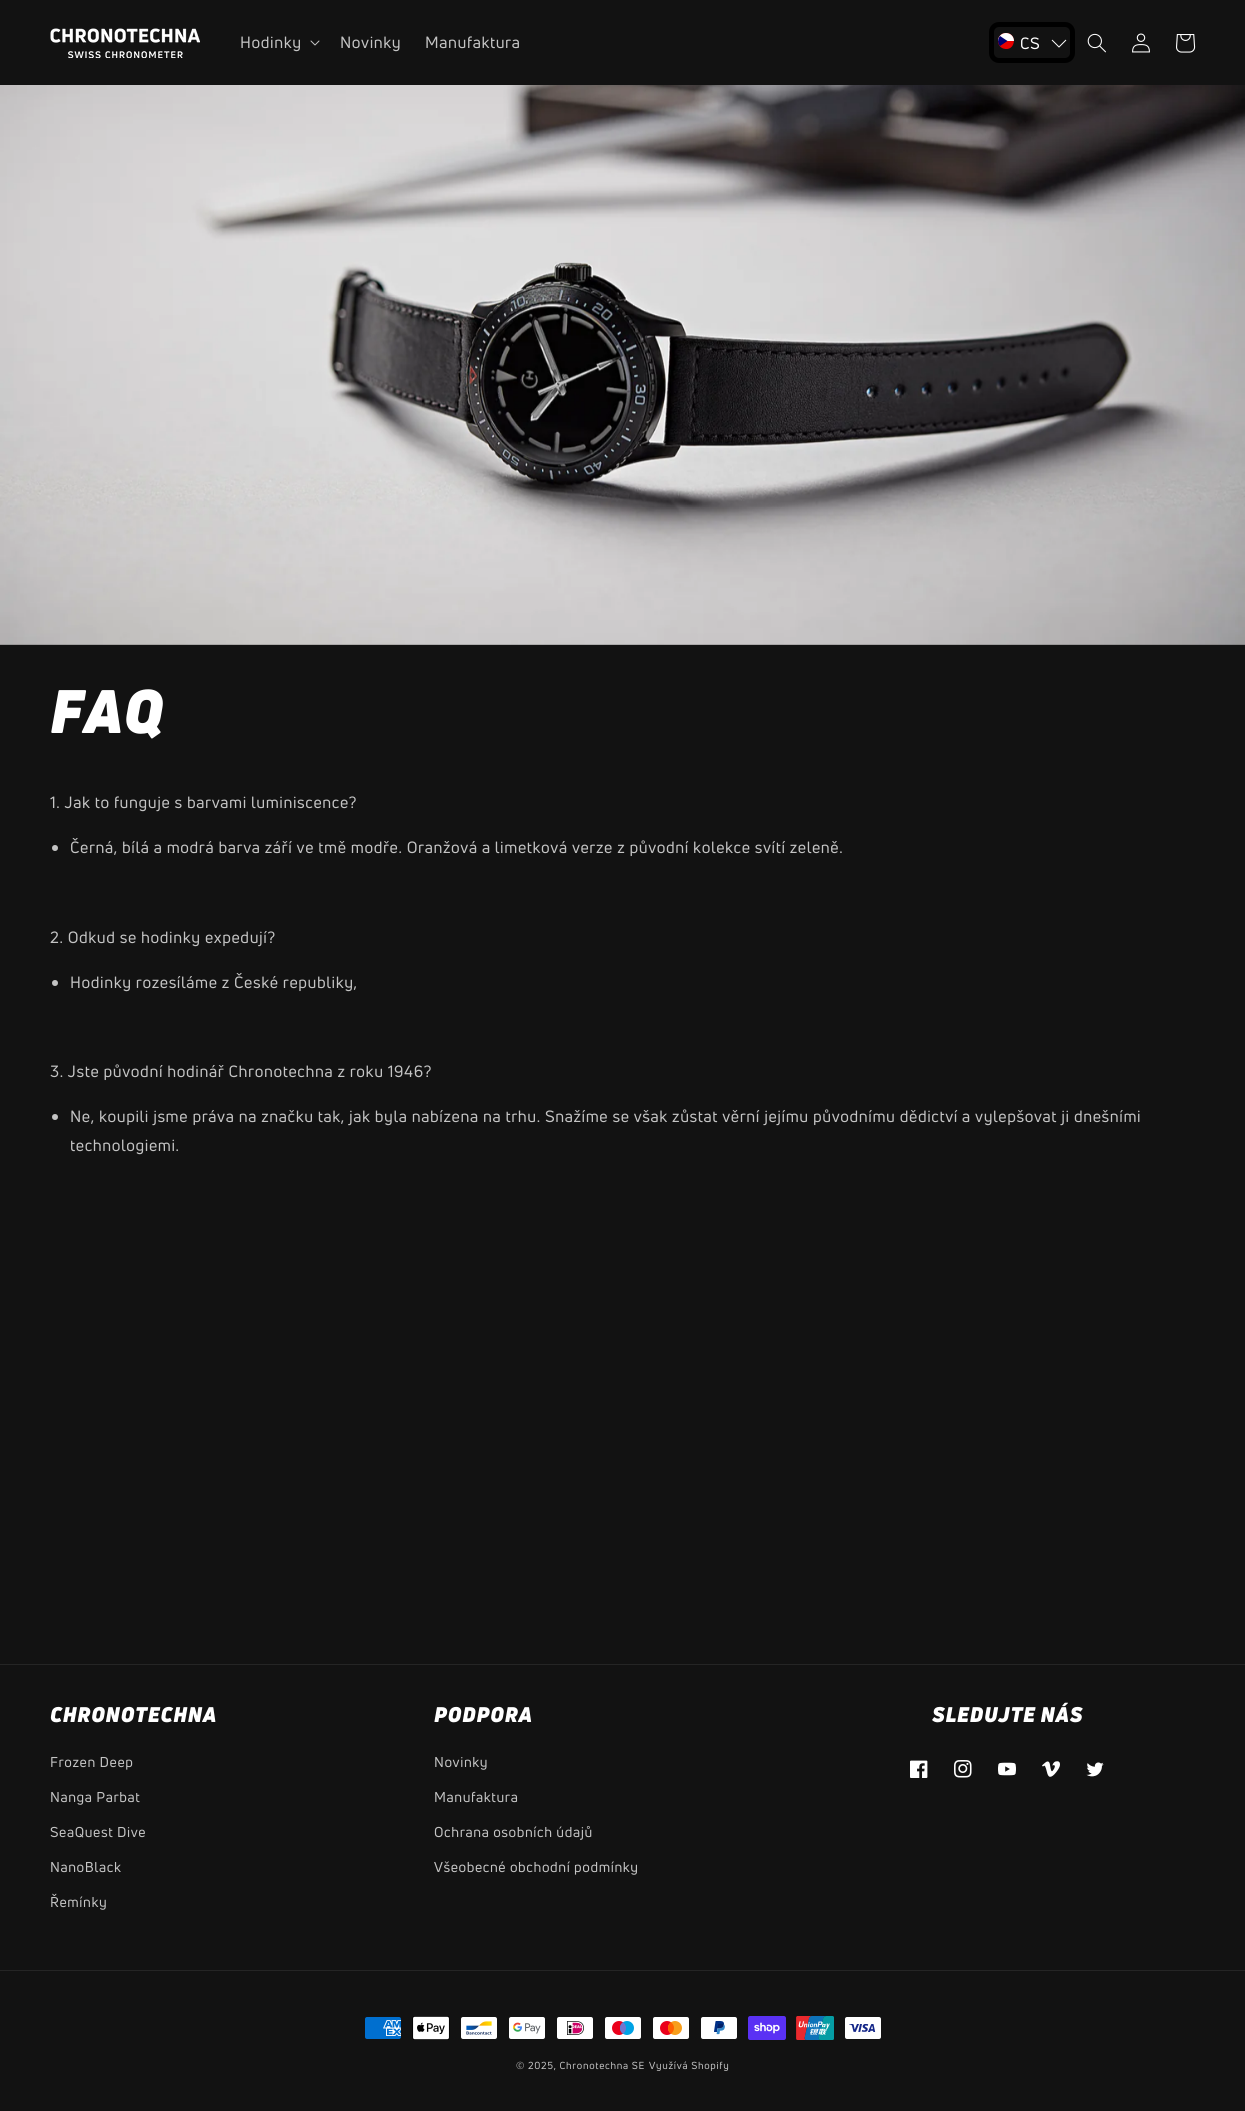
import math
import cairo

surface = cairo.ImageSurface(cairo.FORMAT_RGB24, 1245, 2111)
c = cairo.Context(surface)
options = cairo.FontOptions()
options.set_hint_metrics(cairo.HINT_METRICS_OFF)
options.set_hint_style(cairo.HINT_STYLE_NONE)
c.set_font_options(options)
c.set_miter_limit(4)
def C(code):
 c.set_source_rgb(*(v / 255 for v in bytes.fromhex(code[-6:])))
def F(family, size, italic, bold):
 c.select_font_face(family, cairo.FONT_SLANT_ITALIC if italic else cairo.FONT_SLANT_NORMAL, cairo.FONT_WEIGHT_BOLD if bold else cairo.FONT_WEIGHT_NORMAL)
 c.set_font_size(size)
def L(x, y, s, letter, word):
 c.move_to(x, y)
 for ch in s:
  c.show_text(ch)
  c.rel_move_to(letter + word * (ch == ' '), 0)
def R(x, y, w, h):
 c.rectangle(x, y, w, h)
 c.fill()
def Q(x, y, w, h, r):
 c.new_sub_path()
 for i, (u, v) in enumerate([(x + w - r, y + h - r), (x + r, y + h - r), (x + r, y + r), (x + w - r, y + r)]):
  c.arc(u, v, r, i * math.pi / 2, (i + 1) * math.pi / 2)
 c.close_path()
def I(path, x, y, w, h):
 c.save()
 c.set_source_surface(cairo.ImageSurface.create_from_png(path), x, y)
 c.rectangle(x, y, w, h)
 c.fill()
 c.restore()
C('121212')
c.paint()
I('1.png',50,28,150,30)
F('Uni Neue',16,0,0)
C('c4c4c4')
L(240,48,'Hodinky',.6,0)
I('2.png',310,40,10,6)
L(340,48,'Novinky',.6,0)
L(425,48,'Manufaktura',.6,0)
Q(991.5,24.5,81,36,7.5)
C('000000')
c.set_line_width(5)
c.stroke()
C('e80000')
c.new_path()
c.move_to(1006,33)
c.curve_to(1017,33,1016,50,1005.5,49)
c.curve_to(995,48,996,33,1006,33)
c.close_path()
c.fill()
C('ffffff')
c.new_path()
c.move_to(1006,33)
c.curve_to(1010.5,33,1014,36.5,1014,41)
c.line_to(998,41)
c.curve_to(998,36.5,1001.5,33,1006,33)
c.close_path()
c.fill()
C('00006f')
c.new_path()
c.move_to(1000,36)
c.curve_to(997.5,39,997.5,43,1000,46)
c.line_to(1007.5,41)
c.close_path()
c.fill()
C('ffffff')
L(1020,49,'CS',.6,0)
c.new_path()
c.move_to(1052,40)
c.line_to(1059,47)
c.line_to(1066,40)
c.set_line_width(1)
c.stroke()
I('3.png',1087,33,19,20)
I('4.png',1132,33,18,20)
I('5.png',1176,34,20,19)
I('6.png',0,85,1245,560)
F('Uni Neue Black',60,1,0)
L(50,733,'FAQ',.75,0)
F('Uni Neue',16,0,0)
C('c4c4c4')
L(50,808,'1. Jak to funguje s barvami luminiscence?',.6,0)
c.new_path()
c.arc(55,848,3,0,2 * math.pi)
c.fill()
L(70,853,'Černá, bílá a modrá barva září ve tmě modře. Oranžová a limetková verze z původní kolekce svítí zeleně.',.6,0)
L(50,943,'2. Odkud se hodinky expedují?',.6,0)
c.new_path()
c.arc(55,983,3,0,2 * math.pi)
c.fill()
L(70,988,'Hodinky rozesíláme z České republiky,',.6,0)
L(50,1077,'3. Jste původní hodinář Chronotechna z roku 1946?',.6,0)
c.new_path()
c.arc(55,1117,3,0,2 * math.pi)
c.fill()
L(70,1122,'Ne, koupili jsme práva na značku tak, jak byla nabízena na trhu. Snažíme se však zůstat věrní jejímu původnímu dědictví a vylepšovat ji dnešními',.6,0)
L(70,1151,'technologiemi.',.6,0)
C('252525')
R(0,1664,1245,1)
F('Uni Neue Black',20.75,1,0)
C('ffffff')
L(50,1722,'CHRONOTECHNA',.75,0)
F('Uni Neue',14,0,0)
C('c4c4c4')
L(50,1767,'Frozen Deep',.6,0)
L(50,1802,'Nanga Parbat',.6,0)
L(50,1837,'SeaQuest Dive',.6,0)
L(50,1872,'NanoBlack',.6,0)
L(50,1907,'Řemínky',.6,0)
F('Uni Neue Black',20.75,1,0)
C('ffffff')
L(434,1722,'PODPORA',.75,0)
F('Uni Neue',14,0,0)
C('c4c4c4')
L(434,1767,'Novinky',.6,0)
L(434,1802,'Manufaktura',.6,0)
L(434,1837,'Ochrana osobních údajů',.6,0)
L(434,1872,'Všeobecné obchodní podmínky',.6,0)
F('Uni Neue Black',20.75,1,0)
C('ffffff')
L(932,1722,'SLEDUJTE NÁS',.75,0)
I('7.png',910,1760,18,18)
I('8.png',954,1760,18,18)
I('9.png',998,1762,18,14)
I('10.png',1042,1761,18,16)
I('11.png',1086,1762,18,15)
C('252525')
R(0,1970,1245,1)
I('12.png',365,2017,36,22)
I('13.png',412,2016,38,24)
I('14.png',461,2017,36,22)
I('15.png',509,2017,36,22)
I('16.png',557,2017,36,22)
I('17.png',605,2017,36,22)
I('18.png',653,2017,36,22)
I('19.png',701,2017,36,22)
I('20.png',748,2016,38,24)
I('21.png',796,2016,38,24)
I('22.png',845,2017,36,22)
F('Uni Neue',10,0,0)
C('c4c4c4')
L(516,2069,'© 2025, Chronotechna SE',.7,0)
L(649,2069,'Využívá Shopify',.7,0)
surface.write_to_png('o.png')
